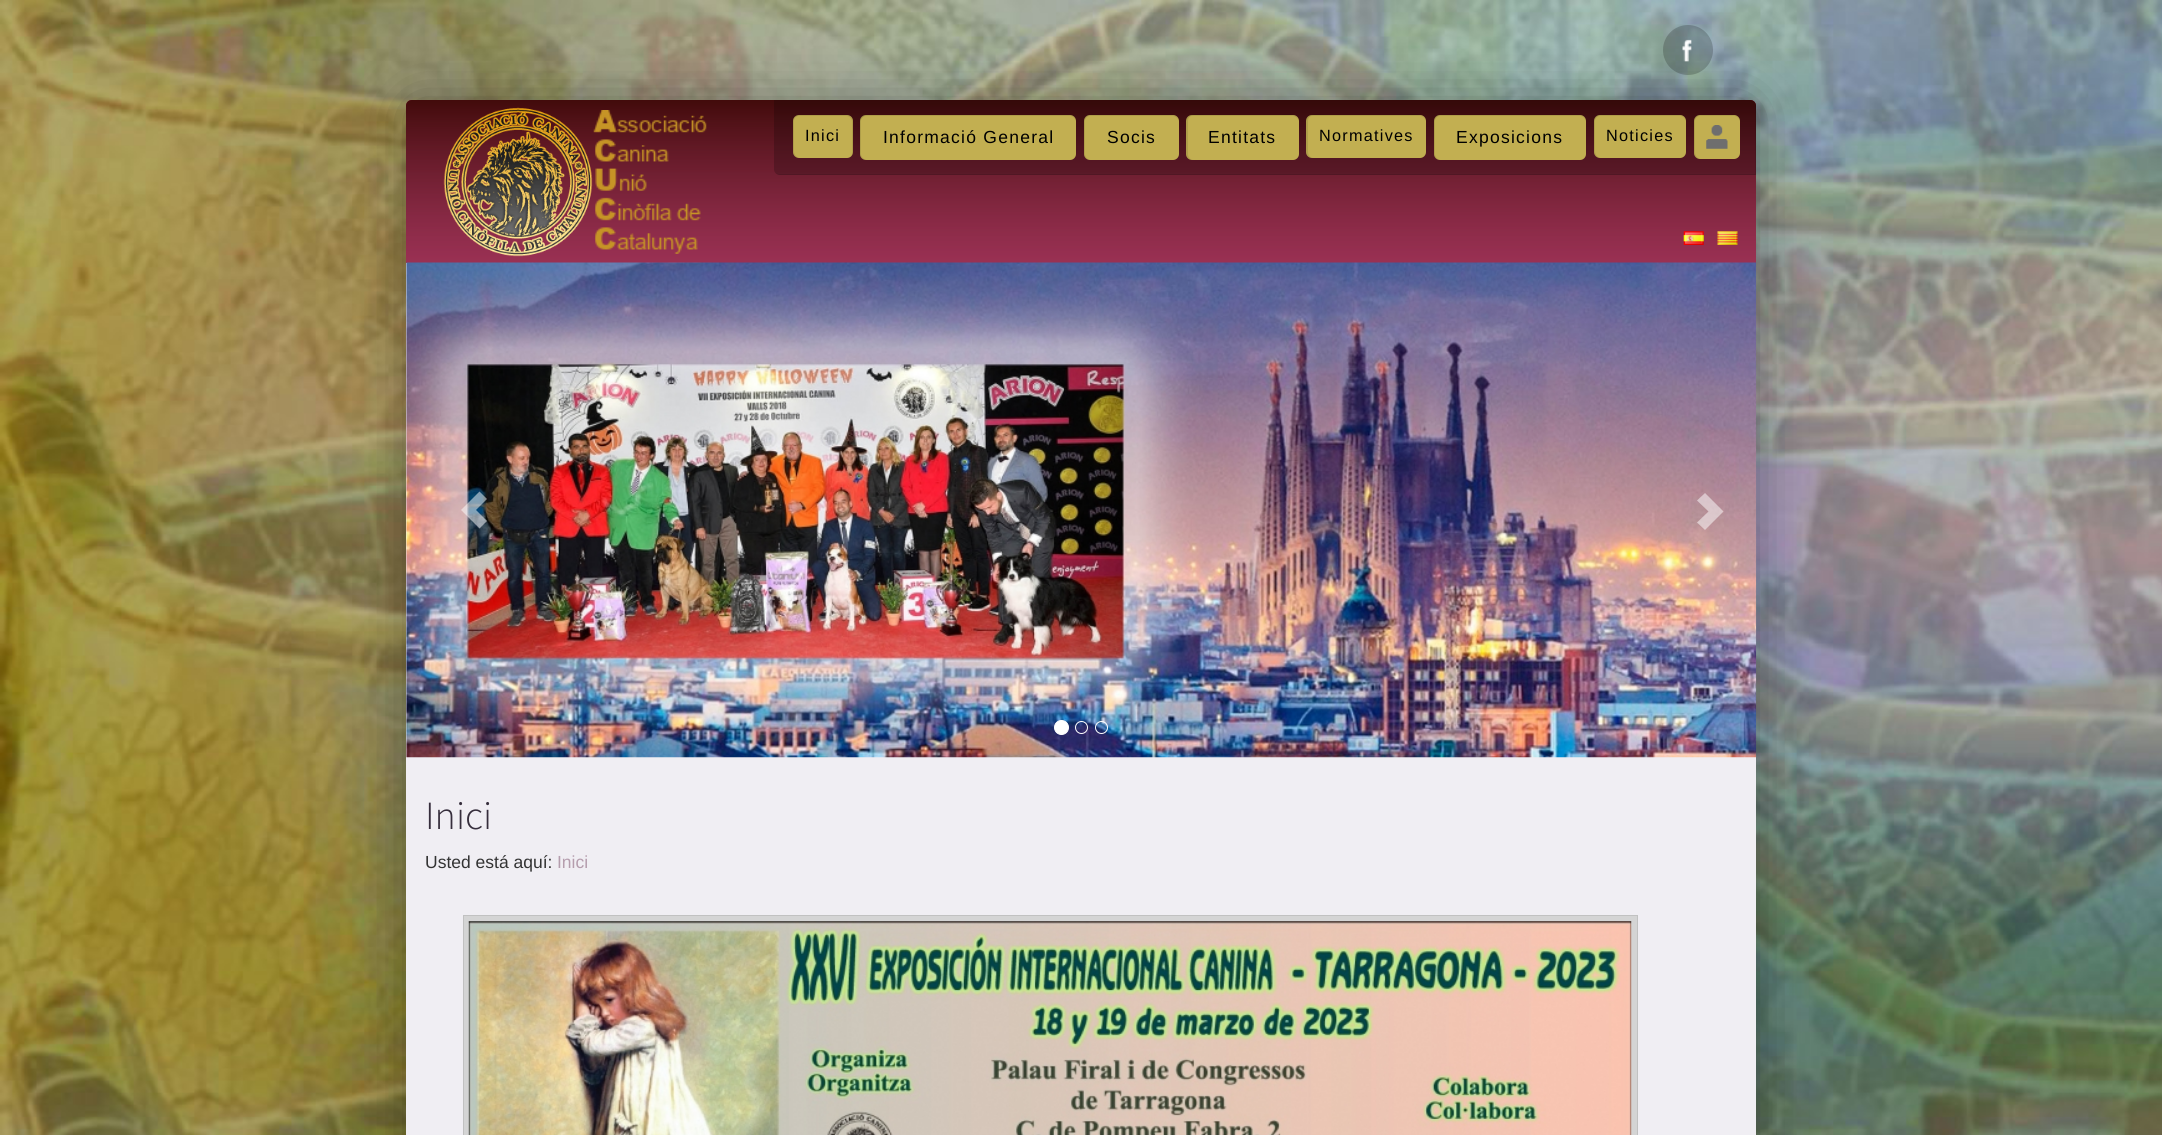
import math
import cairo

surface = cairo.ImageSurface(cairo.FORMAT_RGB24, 2162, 1135)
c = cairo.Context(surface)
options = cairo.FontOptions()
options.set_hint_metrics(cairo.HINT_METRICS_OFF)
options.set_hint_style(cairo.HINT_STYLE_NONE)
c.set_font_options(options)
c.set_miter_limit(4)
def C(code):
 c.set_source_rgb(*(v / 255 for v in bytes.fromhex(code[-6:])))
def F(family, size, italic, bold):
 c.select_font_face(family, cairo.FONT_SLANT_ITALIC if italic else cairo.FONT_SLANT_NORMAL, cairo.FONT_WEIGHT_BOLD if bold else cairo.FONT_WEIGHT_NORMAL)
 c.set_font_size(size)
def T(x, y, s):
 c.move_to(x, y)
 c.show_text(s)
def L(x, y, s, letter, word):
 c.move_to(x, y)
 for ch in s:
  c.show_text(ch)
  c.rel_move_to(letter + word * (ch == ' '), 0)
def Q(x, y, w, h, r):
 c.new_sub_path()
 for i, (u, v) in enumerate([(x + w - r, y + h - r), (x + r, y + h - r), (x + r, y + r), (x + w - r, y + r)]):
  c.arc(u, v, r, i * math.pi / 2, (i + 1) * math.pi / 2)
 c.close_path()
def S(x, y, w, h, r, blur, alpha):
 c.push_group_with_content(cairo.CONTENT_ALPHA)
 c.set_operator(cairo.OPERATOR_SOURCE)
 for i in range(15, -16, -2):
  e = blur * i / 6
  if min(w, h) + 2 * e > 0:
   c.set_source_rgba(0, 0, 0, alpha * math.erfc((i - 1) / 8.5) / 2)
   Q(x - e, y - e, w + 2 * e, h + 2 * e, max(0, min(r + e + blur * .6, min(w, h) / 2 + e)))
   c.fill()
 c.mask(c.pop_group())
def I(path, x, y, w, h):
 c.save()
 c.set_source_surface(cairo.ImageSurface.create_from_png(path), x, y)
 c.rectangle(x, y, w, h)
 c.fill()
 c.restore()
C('ffffff')
c.paint()
I('1.png',0,0,2162,1135)
c.set_source_rgba(0,0,0,0.2)
c.arc(1688,50,25,0,2 * math.pi)
c.fill()
I('2.png',1682,39,10,23)
C('000000')
S(406,100,1350,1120,10,25,.35)
C('f0eef3')
Q(406,100,1350,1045,10)
c.fill()
C('7e1537')
c.new_path()
c.move_to(412,100)
c.line_to(1750,100)
c.curve_to(1753.5,100,1756,102.5,1756,106)
c.line_to(1756,263)
c.line_to(406,263)
c.line_to(406,106)
c.curve_to(406,102.5,408.5,100,412,100)
c.close_path()
c.fill()
gradient = cairo.LinearGradient(1081,263,1081,100)
gradient.add_color_stop_rgba(0,0.643,0.231,0.369,.73)
gradient.add_color_stop_rgba(1,0.259,0.043,0.043,1)
c.set_source(gradient)
c.new_path()
c.move_to(412,100)
c.line_to(1750,100)
c.curve_to(1753.5,100,1756,102.5,1756,106)
c.line_to(1756,263)
c.line_to(406,263)
c.line_to(406,106)
c.curve_to(406,102.5,408.5,100,412,100)
c.close_path()
c.fill()
I('3.png',443,107,150,150)
I('4.png',593,110,114,144)
c.set_source_rgba(0,0,0,0.2)
c.new_path()
c.move_to(774,100)
c.line_to(1750,100)
c.curve_to(1753.5,100,1756,102.5,1756,106)
c.line_to(1756,175)
c.line_to(780,175)
c.curve_to(776.5,175,774,172.5,774,169)
c.close_path()
c.fill()
c.set_source_rgba(0,0,0,0.1)
c.new_path()
c.move_to(776,173)
c.curve_to(777,174,778,175,780,175)
c.line_to(1756,175)
c.line_to(1756,106)
c.curve_to(1756,104,1755,102,1753,101)
c.curve_to(1754,102,1755,104,1755,105)
c.line_to(1755,174)
c.line_to(779,174)
c.close_path()
c.fill()
C('c2af51')
Q(793,115,60,43,6)
c.fill()
c.set_source_rgba(0,0,0,0.1)
c.new_path()
c.move_to(799,115)
c.curve_to(796,115,793,118,793,121)
c.line_to(793,152)
c.curve_to(793,155,796,158,799,158)
c.line_to(800,158)
c.curve_to(797,158,794,155,794,151)
c.line_to(794,121)
c.curve_to(794,118,797,115,800,115)
c.close_path()
c.fill()
c.new_path()
c.move_to(799,116)
c.line_to(846,116)
c.curve_to(850,116,852,119,852,122)
c.line_to(852,152)
c.curve_to(852,154,852,155,851,157)
c.curve_to(852,156,853,154,853,152)
c.line_to(853,121)
c.curve_to(853,118,850,115,847,115)
c.line_to(799,115)
c.curve_to(797,115,795,116,794,118)
c.curve_to(795,117,797,116,799,116)
c.close_path()
c.fill()
F('Liberation Sans',16.25,0,0)
C('000000')
L(805,141,'Inici',1.25,0)
C('c2af51')
Q(860,115,216,45,6)
c.fill()
c.set_source_rgba(0,0,0,0.1)
c.new_path()
c.move_to(866,115)
c.curve_to(863,115,860,118,860,121)
c.line_to(860,154)
c.curve_to(860,157,863,160,866,160)
c.line_to(868,160)
c.curve_to(864,160,861,157,861,154)
c.line_to(861,121)
c.curve_to(861,118,864,115,868,115)
c.close_path()
c.fill()
c.new_path()
c.move_to(866,116)
c.line_to(1070,116)
c.curve_to(1073,116,1076,119,1076,122)
c.curve_to(1076,119,1075,116,1071,115)
c.line_to(866,115)
c.curve_to(862,115,860,118,860,122)
c.curve_to(860,119,863,116,866,116)
c.close_path()
c.fill()
F('Liberation Sans',17.5,0,0)
C('000000')
L(883,143,'Informació General',1.25,0)
C('c2af51')
Q(1084,115,95,45,6)
c.fill()
c.set_source_rgba(0,0,0,0.1)
c.new_path()
c.move_to(1090,115)
c.curve_to(1087,115,1084,118,1084,121)
c.line_to(1084,154)
c.curve_to(1084,157,1087,160,1090,160)
c.line_to(1091,160)
c.curve_to(1088,160,1085,157,1085,154)
c.line_to(1085,121)
c.curve_to(1085,118,1088,115,1091,115)
c.close_path()
c.fill()
c.new_path()
c.move_to(1090,116)
c.line_to(1172,116)
c.curve_to(1176,116,1179,119,1179,122)
c.curve_to(1179,112,1166,115,1159,115)
c.line_to(1104,115)
c.curve_to(1097,115,1084,112,1084,122)
c.curve_to(1084,119,1087,116,1090,116)
c.close_path()
c.fill()
C('000000')
L(1107,143,'Socis',1.25,0)
C('c2af51')
Q(1186,115,113,45,6)
c.fill()
c.set_source_rgba(0,0,0,0.1)
c.new_path()
c.move_to(1192,115)
c.curve_to(1189,115,1186,118,1186,121)
c.line_to(1186,154)
c.curve_to(1186,157,1189,160,1192,160)
c.line_to(1194,160)
c.curve_to(1190,160,1188,157,1188,154)
c.line_to(1188,121)
c.curve_to(1188,118,1190,115,1194,115)
c.close_path()
c.fill()
c.new_path()
c.move_to(1192,116)
c.line_to(1292,116)
c.curve_to(1296,116,1299,119,1299,122)
c.curve_to(1299,111,1282,115,1276,115)
c.line_to(1209,115)
c.curve_to(1203,115,1186,111,1186,122)
c.curve_to(1186,119,1189,116,1192,116)
c.close_path()
c.fill()
C('000000')
L(1208,143,'Entitats',1.25,0)
C('c2af51')
Q(1306,115,120,43,6)
c.fill()
c.set_source_rgba(0,0,0,0.1)
c.new_path()
c.move_to(1312,115)
c.curve_to(1309,115,1306,118,1306,121)
c.line_to(1306,152)
c.curve_to(1306,155,1309,158,1312,158)
c.line_to(1314,158)
c.curve_to(1310,158,1308,155,1308,151)
c.line_to(1308,121)
c.curve_to(1308,118,1310,115,1314,115)
c.close_path()
c.fill()
c.new_path()
c.move_to(1312,116)
c.line_to(1420,116)
c.curve_to(1423,116,1426,119,1426,122)
c.curve_to(1426,111,1408,115,1402,115)
c.line_to(1330,115)
c.curve_to(1324,115,1306,111,1306,122)
c.curve_to(1306,119,1309,116,1312,116)
c.close_path()
c.fill()
F('Liberation Sans',16.25,0,0)
C('000000')
L(1319,141,'Normatives',1.25,0)
C('c2af51')
Q(1434,115,152,45,6)
c.fill()
c.set_source_rgba(0,0,0,0.1)
c.new_path()
c.move_to(1440,115)
c.curve_to(1437,115,1434,118,1434,121)
c.line_to(1434,154)
c.curve_to(1434,157,1437,160,1440,160)
c.line_to(1441,160)
c.curve_to(1438,160,1435,157,1435,154)
c.line_to(1435,121)
c.curve_to(1435,118,1438,115,1441,115)
c.close_path()
c.fill()
c.new_path()
c.move_to(1440,116)
c.line_to(1580,116)
c.curve_to(1583,116,1586,119,1586,122)
c.line_to(1586,121)
c.curve_to(1586,118,1583,115,1580,115)
c.line_to(1440,115)
c.curve_to(1437,115,1434,118,1434,121)
c.line_to(1434,122)
c.curve_to(1434,119,1437,116,1440,116)
c.close_path()
c.fill()
F('Liberation Sans',17.5,0,0)
C('000000')
L(1456,143,'Exposicions',1.25,0)
C('c2af51')
Q(1594,115,92,43,6)
c.fill()
c.set_source_rgba(0,0,0,0.1)
c.new_path()
c.move_to(1600,115)
c.curve_to(1597,115,1594,118,1594,121)
c.line_to(1594,152)
c.curve_to(1594,155,1597,158,1600,158)
c.line_to(1601,158)
c.curve_to(1598,158,1595,155,1595,151)
c.line_to(1595,121)
c.curve_to(1595,118,1598,115,1601,115)
c.close_path()
c.fill()
c.new_path()
c.move_to(1600,116)
c.line_to(1680,116)
c.curve_to(1683,116,1686,119,1686,122)
c.curve_to(1686,112,1673,115,1667,115)
c.line_to(1613,115)
c.curve_to(1607,115,1594,112,1594,122)
c.curve_to(1594,119,1597,116,1600,116)
c.close_path()
c.fill()
F('Liberation Sans',16.25,0,0)
C('000000')
L(1606,141,'Noticies',1.25,0)
C('c2af51')
Q(1694,115,46,44,6)
c.fill()
c.set_source_rgba(0,0,0,0.1)
c.new_path()
c.move_to(1700,115)
c.curve_to(1697,115,1694,118,1694,121)
c.line_to(1694,153)
c.curve_to(1694,156,1697,159,1700,159)
c.line_to(1701,159)
c.curve_to(1698,159,1695,156,1695,152)
c.line_to(1695,121)
c.curve_to(1695,118,1698,115,1701,115)
c.close_path()
c.fill()
c.new_path()
c.move_to(1700,116)
c.line_to(1734,116)
c.curve_to(1737,116,1740,119,1740,122)
c.curve_to(1740,114,1734,115,1728,115)
c.line_to(1706,115)
c.curve_to(1700,115,1694,114,1694,122)
c.curve_to(1694,119,1697,116,1700,116)
c.close_path()
c.fill()
I('5.png',1706,125,22,24)
I('6.png',1683,231,21,14)
I('7.png',1717,231,21,14)
I('8.png',406,262,1351,496)
c.set_source_rgba(1,1,1,0.5)
c.new_path()
c.move_to(461,510)
c.line_to(479.5,528.5)
c.line_to(487,521)
c.line_to(476,510)
c.line_to(487,499)
c.line_to(479.5,491.5)
c.close_path()
c.fill()
c.new_path()
c.move_to(1697,522.5)
c.line_to(1708.5,511.5)
c.line_to(1697,500.5)
c.line_to(1705,493)
c.line_to(1723.5,511.5)
c.line_to(1705,530)
c.close_path()
c.fill()
C('ffffff')
c.arc(1061.5,727.5,7,0,2 * math.pi)
c.fill_preserve()
c.set_line_width(1)
c.stroke()
c.arc(1081.5,727.5,6,0,2 * math.pi)
c.stroke()
c.arc(1101.5,727.5,6,0,2 * math.pi)
c.stroke()
F('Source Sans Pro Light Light',40,0,0)
C('362e3c')
T(425,829,'Inici')
F('Liberation Sans',17.5,0,0)
C('333333')
T(425,868,'Usted está aquí:')
C('b59dad')
T(557,868,'Inici')
C('d4d4d4')
c.rectangle(463.5,915.5,1174,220)
c.fill_preserve()
C('c1c1c1')
c.stroke()
I('9.png',468,921,1164,214)
surface.write_to_png('o.png')
